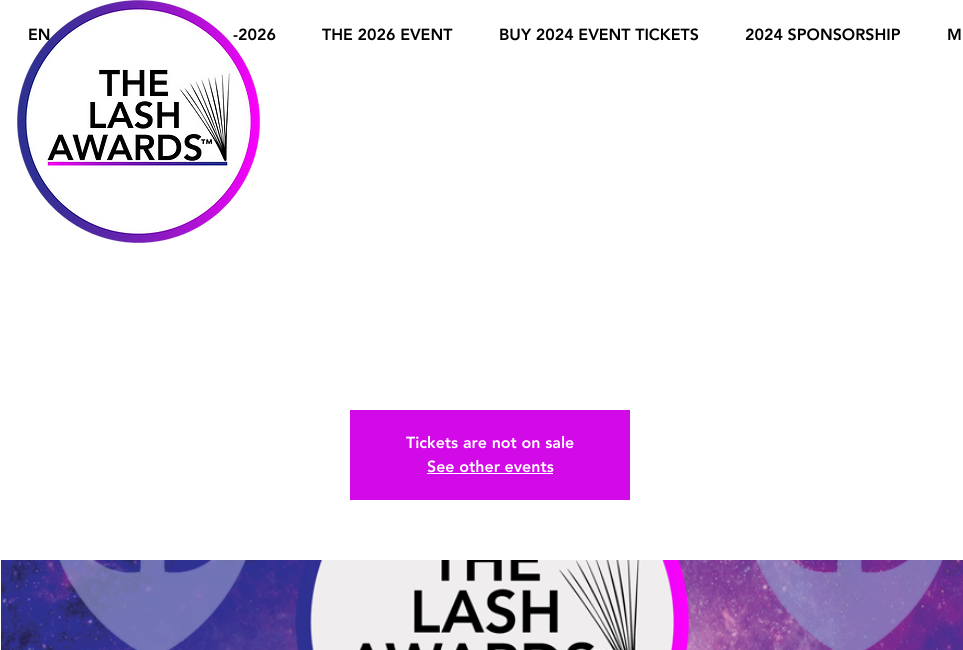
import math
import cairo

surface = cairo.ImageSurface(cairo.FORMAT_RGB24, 963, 650)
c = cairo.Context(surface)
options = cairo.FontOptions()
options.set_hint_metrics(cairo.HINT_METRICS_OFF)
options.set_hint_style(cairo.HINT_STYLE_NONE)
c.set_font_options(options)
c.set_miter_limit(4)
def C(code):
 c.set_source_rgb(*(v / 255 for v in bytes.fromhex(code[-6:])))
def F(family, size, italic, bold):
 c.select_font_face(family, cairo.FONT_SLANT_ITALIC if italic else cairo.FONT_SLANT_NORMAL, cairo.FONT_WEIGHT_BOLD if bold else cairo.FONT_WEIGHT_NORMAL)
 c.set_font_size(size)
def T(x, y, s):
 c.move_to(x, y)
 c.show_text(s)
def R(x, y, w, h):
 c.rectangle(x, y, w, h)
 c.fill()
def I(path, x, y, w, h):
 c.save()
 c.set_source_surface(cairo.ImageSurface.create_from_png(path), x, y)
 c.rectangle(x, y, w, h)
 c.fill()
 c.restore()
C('ffffff')
c.paint()
F('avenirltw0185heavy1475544 Black',16,0,0)
C('000000')
T(28,40,'EN')
T(233,40,'-2026')
I('1.png',17,0,243,243)
T(322,40,'THE 2026 EVENT')
T(499,40,'BUY 2024 EVENT TICKETS')
T(745,40,'2024 SPONSORSHIP')
T(947,40,'M')
C('d30ae8')
R(350,410,280,90)
C('ffffff')
T(406,448,'Tickets are not on sale')
T(427,472,'See other events')
R(427,473,126,1)
I('2.png',1,560,962,90)
surface.write_to_png('o.png')
